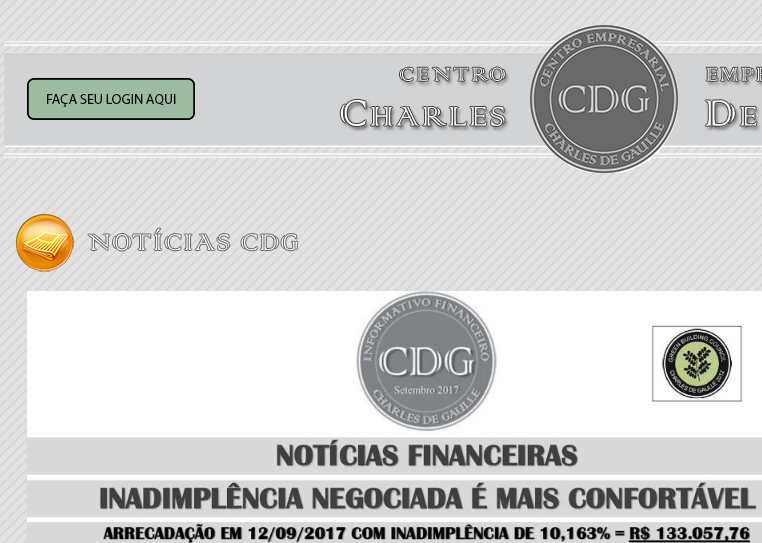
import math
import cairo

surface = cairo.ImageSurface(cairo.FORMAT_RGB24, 762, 543)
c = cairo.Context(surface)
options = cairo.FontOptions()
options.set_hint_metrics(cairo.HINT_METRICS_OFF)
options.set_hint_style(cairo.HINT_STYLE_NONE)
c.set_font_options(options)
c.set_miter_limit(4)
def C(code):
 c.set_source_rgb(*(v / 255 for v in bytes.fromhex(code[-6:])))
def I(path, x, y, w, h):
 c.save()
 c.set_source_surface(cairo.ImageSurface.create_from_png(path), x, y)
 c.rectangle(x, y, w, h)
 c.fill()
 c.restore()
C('ffffff')
c.paint()
I('1.png',0,0,762,543)
I('2.png',4,25,758,148)
I('3.png',27,78,168,42)
I('4.png',16,214,283,58)
I('5.png',27,291,735,252)
surface.write_to_png('o.png')
